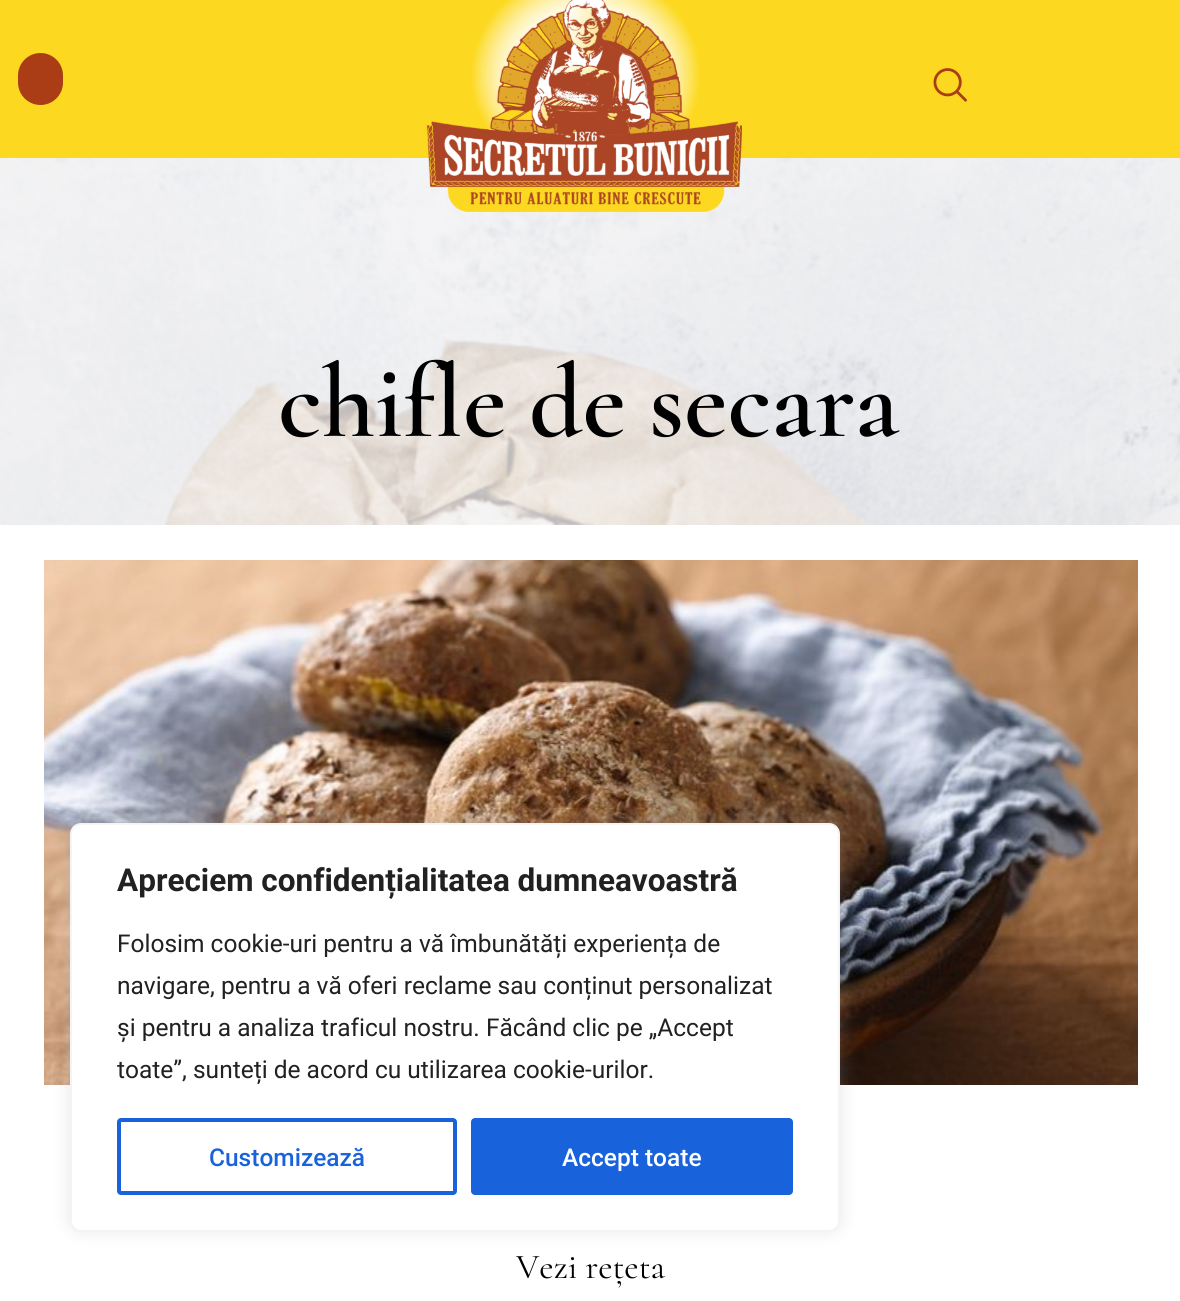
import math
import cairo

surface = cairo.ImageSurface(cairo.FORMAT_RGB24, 1180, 1301)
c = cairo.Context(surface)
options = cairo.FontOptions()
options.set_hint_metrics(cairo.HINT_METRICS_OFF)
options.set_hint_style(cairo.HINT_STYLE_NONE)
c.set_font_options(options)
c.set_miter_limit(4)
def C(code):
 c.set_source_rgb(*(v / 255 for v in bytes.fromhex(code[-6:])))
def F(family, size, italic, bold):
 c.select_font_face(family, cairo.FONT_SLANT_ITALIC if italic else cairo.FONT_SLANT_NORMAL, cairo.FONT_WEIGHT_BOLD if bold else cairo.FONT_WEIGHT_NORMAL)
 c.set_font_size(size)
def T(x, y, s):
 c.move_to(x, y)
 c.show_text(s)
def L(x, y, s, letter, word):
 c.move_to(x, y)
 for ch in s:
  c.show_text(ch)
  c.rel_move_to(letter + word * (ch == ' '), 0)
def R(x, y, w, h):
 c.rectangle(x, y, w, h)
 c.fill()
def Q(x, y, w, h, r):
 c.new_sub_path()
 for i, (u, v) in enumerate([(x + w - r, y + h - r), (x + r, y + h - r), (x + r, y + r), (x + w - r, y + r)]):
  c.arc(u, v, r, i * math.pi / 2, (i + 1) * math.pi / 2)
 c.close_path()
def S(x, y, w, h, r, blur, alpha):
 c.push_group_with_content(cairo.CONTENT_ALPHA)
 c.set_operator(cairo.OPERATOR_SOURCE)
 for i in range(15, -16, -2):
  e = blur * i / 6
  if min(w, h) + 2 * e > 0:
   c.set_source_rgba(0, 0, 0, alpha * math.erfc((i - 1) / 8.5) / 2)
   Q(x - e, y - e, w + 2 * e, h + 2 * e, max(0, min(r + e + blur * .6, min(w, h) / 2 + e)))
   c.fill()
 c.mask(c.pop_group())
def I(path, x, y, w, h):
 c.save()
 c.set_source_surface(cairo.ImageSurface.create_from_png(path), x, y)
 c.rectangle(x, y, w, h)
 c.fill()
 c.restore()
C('ffffff')
c.paint()
C('fcd920')
R(0,0,1180,158)
C('aa3d16')
Q(18,53,45,52,22.5)
c.fill()
I('3.png',0,158,1180,367)
I('1.png',426,0,316,212)
I('2.png',933,68,34,34)
F('Cormorant SemiBold',105,0,0)
C('000000')
L(278,436,'chifle de secara',0,-2)
I('4.png',44,560,1094,525)
F('Cormorant',35,0,0)
T(516,1278,'Vezi rețeta')
C('acabab')
S(70,821,770,409,11,9,.3)
C('ffffff')
Q(71,824,768,407,10)
c.fill_preserve()
C('f4f4f4')
c.stroke()
F('Roboto',31.5,0,1)
C('212121')
T(117,891,'Apreciem confidențialitatea dumneavoastră')
F('Roboto',24.5,0,0)
T(117,952,'Folosim cookie-uri pentru a vă îmbunătăți experiența de')
T(117,994,'navigare, pentru a vă oferi reclame sau conținut personalizat')
T(117,1036,'și pentru a analiza traficul nostru. Făcând clic pe „Accept')
T(117,1078,'toate”, sunteți de acord cu utilizarea cookie-urilor.')
Q(119,1120,336,73,2)
C('1863dc')
c.set_line_width(4)
c.stroke()
F('Roboto Medium',24.5,0,0)
T(209,1166,'Customizează')
Q(473,1120,318,73,2)
c.fill_preserve()
c.stroke()
C('ffffff')
T(562,1166,'Accept toate')
surface.write_to_png('o.png')
